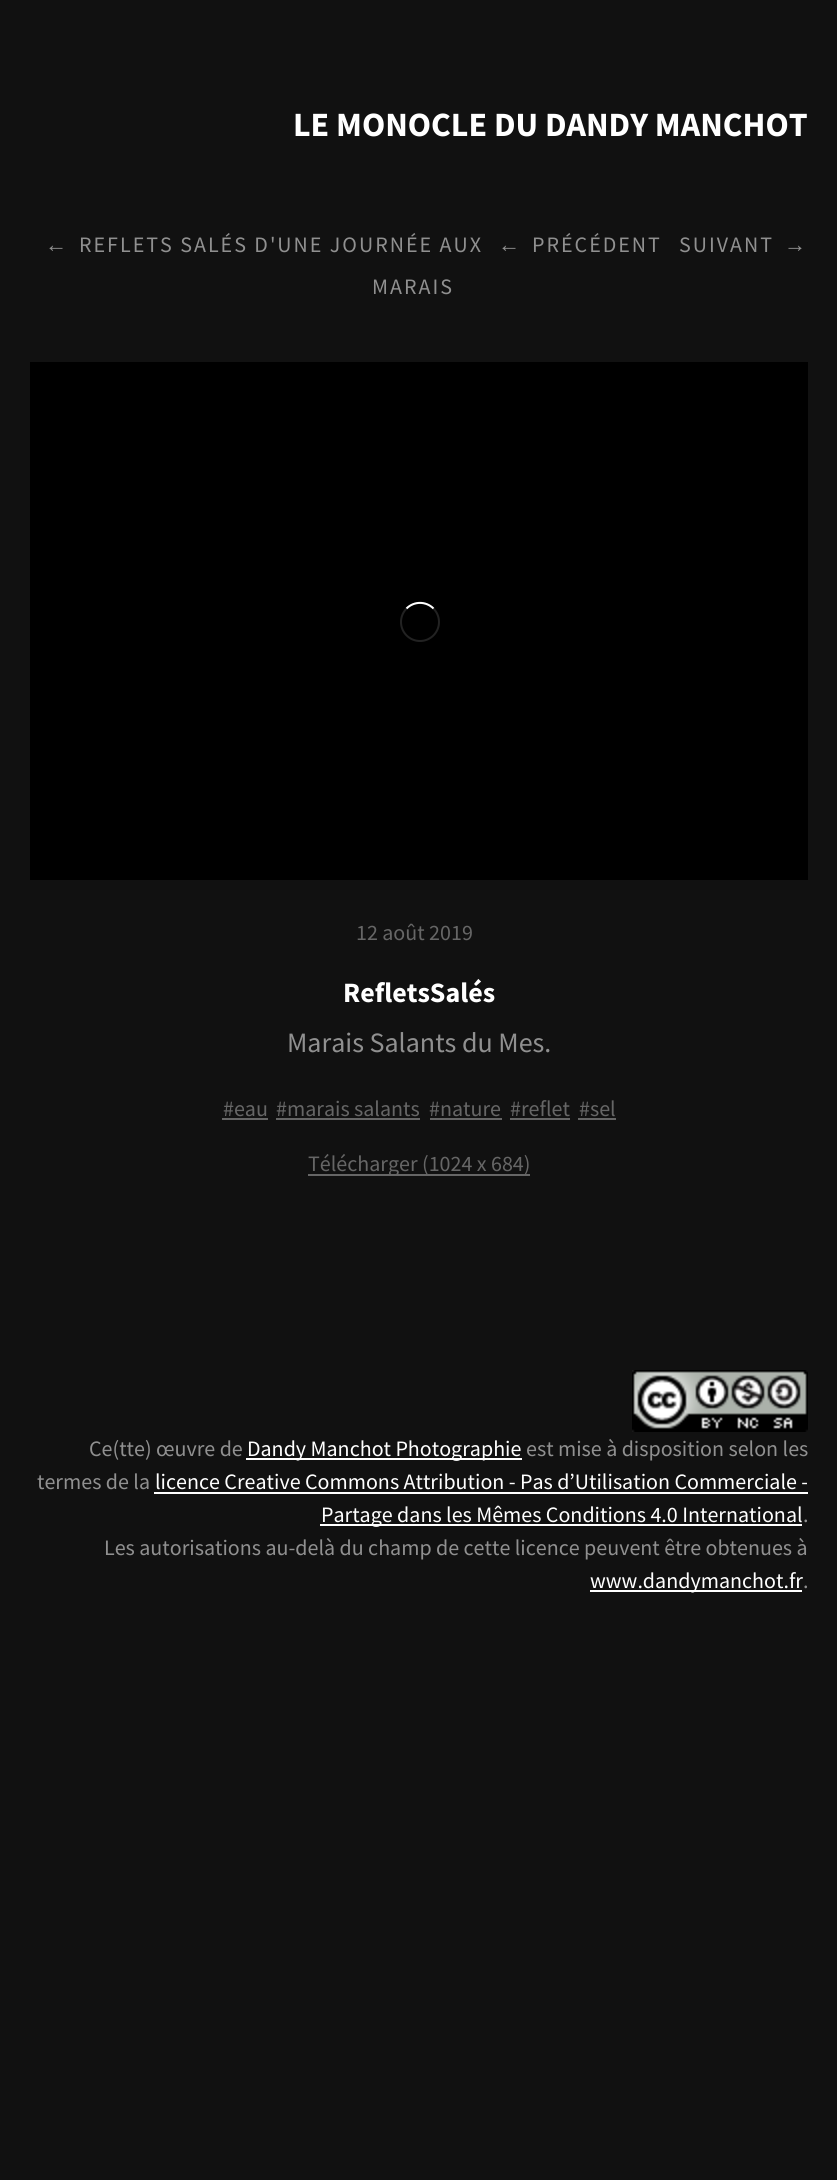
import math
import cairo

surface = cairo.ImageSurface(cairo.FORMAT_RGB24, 837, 2180)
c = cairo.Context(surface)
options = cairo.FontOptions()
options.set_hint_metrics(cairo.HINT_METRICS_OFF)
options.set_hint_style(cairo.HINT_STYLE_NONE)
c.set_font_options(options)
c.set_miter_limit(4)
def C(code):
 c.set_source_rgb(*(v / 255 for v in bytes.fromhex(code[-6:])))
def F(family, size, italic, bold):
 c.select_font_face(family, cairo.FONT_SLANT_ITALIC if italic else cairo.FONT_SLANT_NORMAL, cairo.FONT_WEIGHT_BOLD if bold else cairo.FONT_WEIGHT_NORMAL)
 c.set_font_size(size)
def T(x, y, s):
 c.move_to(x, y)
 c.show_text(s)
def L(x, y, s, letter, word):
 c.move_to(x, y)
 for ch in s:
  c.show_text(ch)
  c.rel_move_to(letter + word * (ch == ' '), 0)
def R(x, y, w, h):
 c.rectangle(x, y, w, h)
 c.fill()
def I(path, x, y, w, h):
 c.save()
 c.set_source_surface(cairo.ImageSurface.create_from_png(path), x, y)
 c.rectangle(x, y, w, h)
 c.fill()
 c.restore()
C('111111')
c.paint()
F('Source Sans Pro',34,0,1)
C('ffffff')
T(293,136,'LE MONOCLE DU DANDY MANCHOT')
F('Liberation Sans',22,0,0)
C('909090')
L(45,252,'←',2,0)
F('Source Sans Pro',22,0,0)
L(79,252,'REFLETS SALÉS D\'UNE JOURNÉE AUX',2,0)
F('Liberation Sans',22,0,0)
L(498,252,'←',2,0)
F('Source Sans Pro',22,0,0)
L(532,252,'PRÉCÉDENT',2,0)
L(679,252,'SUIVANT',2,0)
F('Liberation Sans',22,0,0)
L(784,252,'→',2,0)
F('Source Sans Pro',22,0,0)
L(372,294,'MARAIS',2,0)
C('000000')
R(30,362,778,518)
c.new_path()
c.arc(420,622,19,0,2 * math.pi)
C('222222')
c.stroke()
c.new_path()
c.move_to(406.5,608.5)
c.curve_to(414,601,426,601,433.5,608.5)
C('ffffff')
c.stroke()
C('666666')
T(356,940,'12 août 2019')
F('Source Sans Pro',28,0,1)
C('ffffff')
T(343,1002,'RefletsSalés')
F('Source Sans Pro',28,0,0)
C('909090')
T(287,1052,'Marais Salants du Mes.')
F('Source Sans Pro',22,0,0)
C('666666')
T(223,1116,'#eau')
R(222,1118,46,2)
T(276,1116,'#marais salants')
R(276,1118,144,2)
T(429,1116,'#nature')
R(430,1118,72,2)
T(510,1116,'#reflet')
R(510,1118,60,2)
T(579,1116,'#sel')
R(578,1118,38,2)
R(308,1174,222,2)
T(308,1171,'Télécharger (1024 x 684)')
I('1.png',632,1370,176,62)
C('909090')
T(89,1456,'Ce(tte) œuvre de')
C('ffffff')
R(246,1458,276,2)
T(247,1456,'Dandy Manchot Photographie')
C('909090')
T(526,1456,'est mise à disposition selon les')
T(37,1489,'termes de la')
C('ffffff')
T(155,1489,'licence Creative Commons Attribution - Pas d’Utilisation Commerciale -')
R(154,1492,654,2)
R(320,1524,482,2)
T(321,1522,'Partage dans les Mêmes Conditions 4.0 International')
C('909090')
T(803,1522,'.')
T(104,1555,'Les autorisations au-delà du champ de cette licence peuvent être obtenues à')
C('ffffff')
R(590,1590,212,2)
T(590,1588,'www.dandymanchot.fr')
C('909090')
T(803,1588,'.')
surface.write_to_png('o.png')
